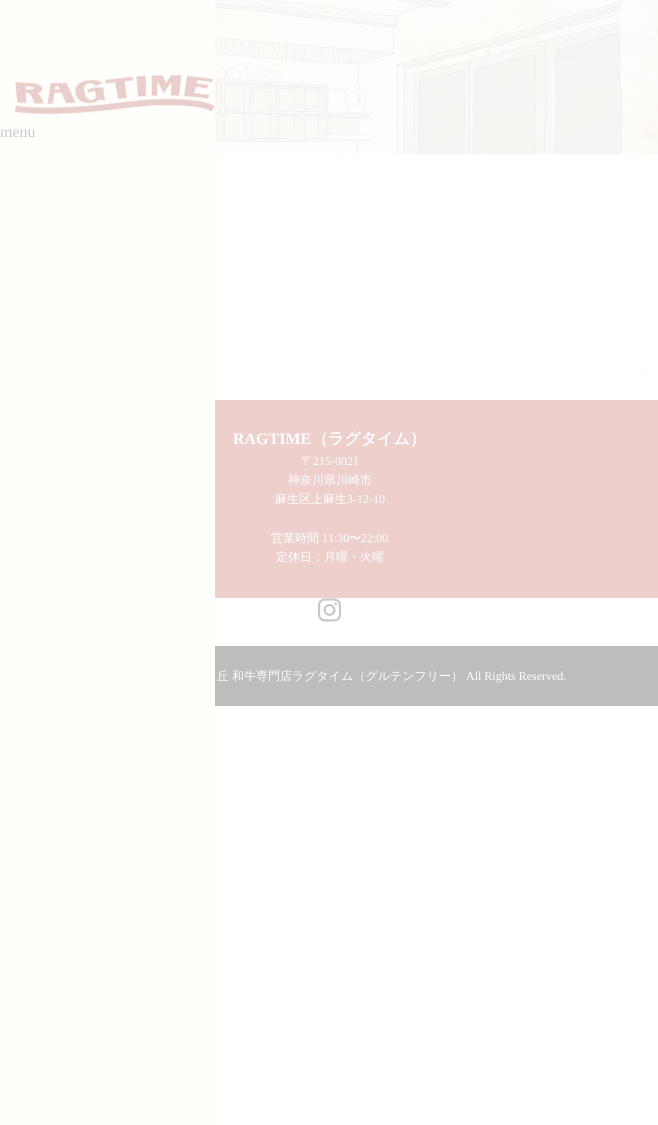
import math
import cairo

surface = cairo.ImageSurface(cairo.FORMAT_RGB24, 658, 1125)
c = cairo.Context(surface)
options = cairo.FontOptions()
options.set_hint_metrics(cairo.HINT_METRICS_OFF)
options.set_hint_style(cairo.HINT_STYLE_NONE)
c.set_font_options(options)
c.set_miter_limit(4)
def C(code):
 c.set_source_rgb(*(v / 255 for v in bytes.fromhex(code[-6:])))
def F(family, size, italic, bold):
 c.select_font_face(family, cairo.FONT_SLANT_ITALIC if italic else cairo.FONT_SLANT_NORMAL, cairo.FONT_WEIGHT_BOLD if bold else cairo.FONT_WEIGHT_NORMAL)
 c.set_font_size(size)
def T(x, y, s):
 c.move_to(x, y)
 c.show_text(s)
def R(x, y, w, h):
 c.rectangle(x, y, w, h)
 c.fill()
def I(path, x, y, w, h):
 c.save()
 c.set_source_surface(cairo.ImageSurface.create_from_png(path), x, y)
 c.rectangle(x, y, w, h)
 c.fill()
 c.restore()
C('ffffff')
c.paint()
c.rectangle(16.5,253.5,626,121)
C('fbfbfb')
c.set_line_width(1)
c.stroke()
C('fffefb')
R(0,0,215,1125)
I('1.png',15,74,200,41)
F('Liberation Serif',16,0,0)
C('cacaca')
T(0,137,'menu')
I('2.png',215,0,443,154)
C('edcfcc')
R(215,400,443,198)
F('Liberation Serif',16,0,1)
C('ffffff')
T(233,444,'RAGTIME')
F('WenQuanYi Zen Hei',16,0,1)
T(312,444,'（ラグタイム）')
F('WenQuanYi Zen Hei Medium',12,0,0)
T(301,465,'〒')
F('Liberation Serif',12,0,0)
T(313,465,'215-0021')
F('WenQuanYi Zen Hei Medium',12,0,0)
T(288,484,'神奈川県川崎市')
T(275,503,'麻生区上麻生')
F('Liberation Serif',12,0,0)
T(347,503,'3-12-10')
F('WenQuanYi Zen Hei Medium',12,0,0)
T(271,542,'営業時間')
F('Liberation Serif',12,0,0)
T(322,542,'11:30')
F('WenQuanYi Zen Hei Medium',12,0,0)
T(349,542,'〜')
F('Liberation Serif',12,0,0)
T(361,542,'22:00')
F('WenQuanYi Zen Hei Medium',12,0,0)
T(276,561,'定休日：月曜・火曜')
I('3.png',318,598,23,24)
C('bdbdbd')
R(215,646,443,60)
C('ffffff')
T(217,680,'丘')
T(232,680,'和牛専門店ラグタイム（グルテンフリー）')
F('Liberation Serif',12,0,0)
T(466,680,'All Rights Reserved.')
surface.write_to_png('o.png')
